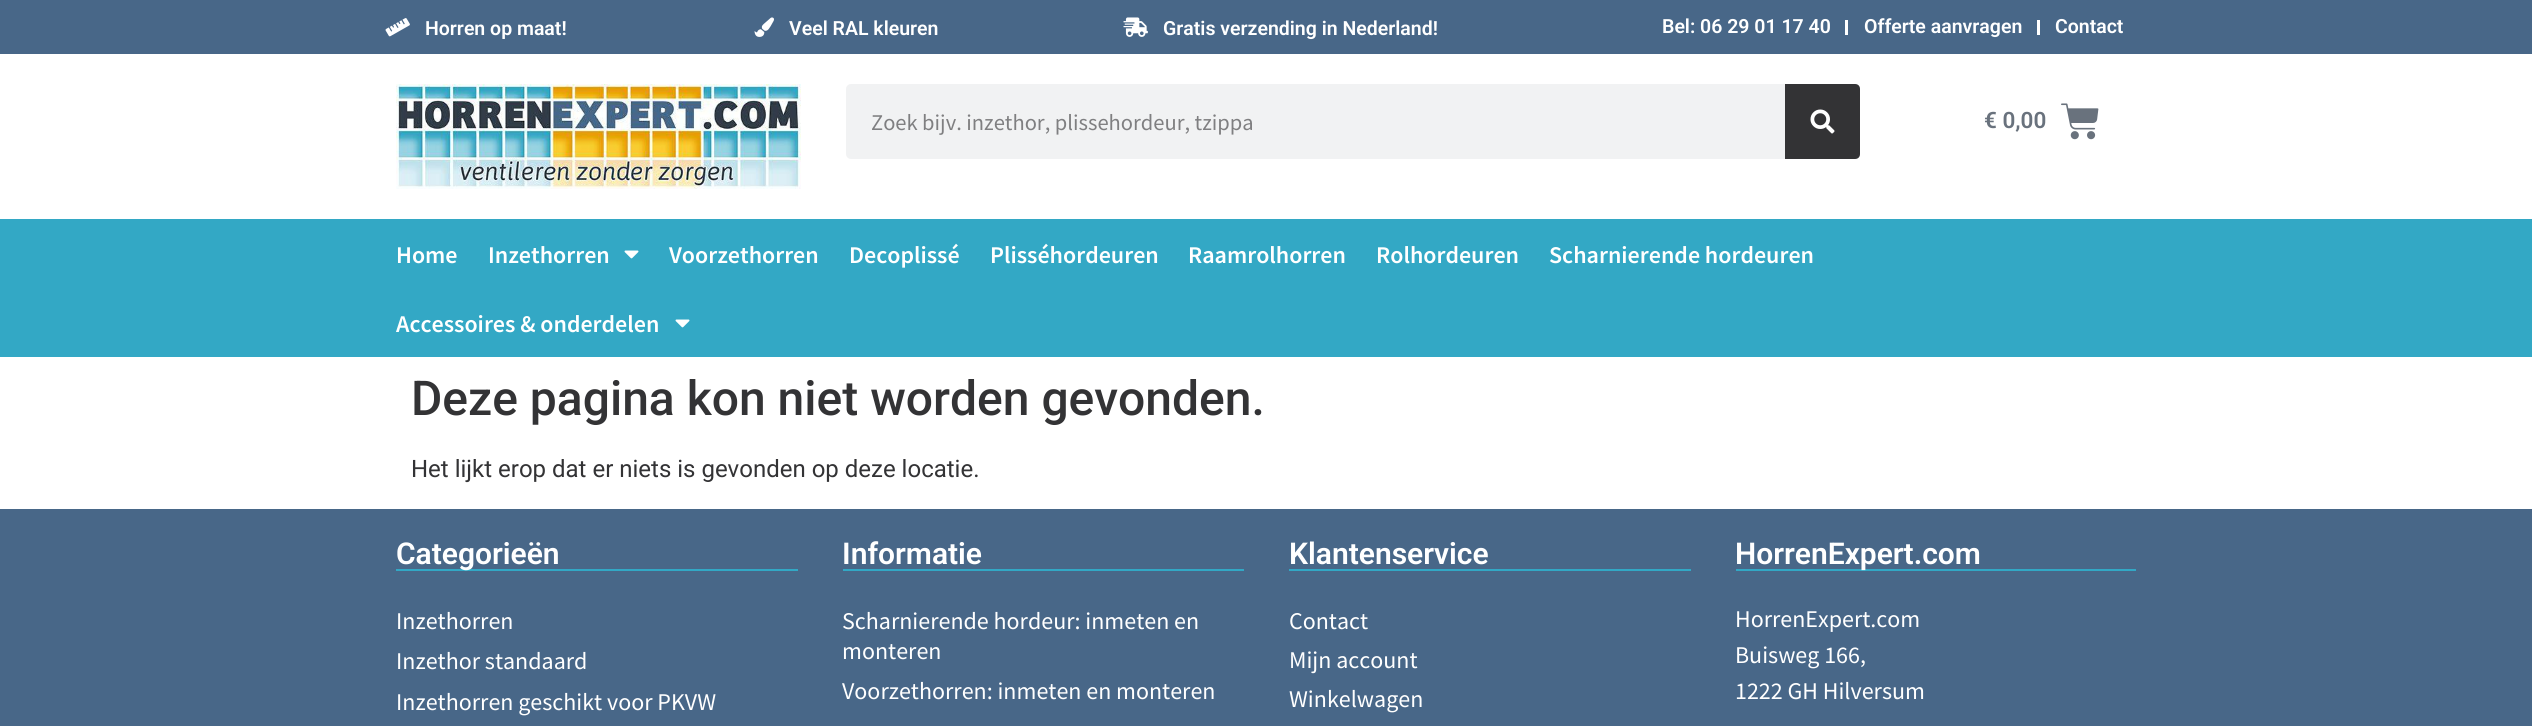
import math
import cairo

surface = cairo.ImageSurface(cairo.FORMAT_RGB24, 2532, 726)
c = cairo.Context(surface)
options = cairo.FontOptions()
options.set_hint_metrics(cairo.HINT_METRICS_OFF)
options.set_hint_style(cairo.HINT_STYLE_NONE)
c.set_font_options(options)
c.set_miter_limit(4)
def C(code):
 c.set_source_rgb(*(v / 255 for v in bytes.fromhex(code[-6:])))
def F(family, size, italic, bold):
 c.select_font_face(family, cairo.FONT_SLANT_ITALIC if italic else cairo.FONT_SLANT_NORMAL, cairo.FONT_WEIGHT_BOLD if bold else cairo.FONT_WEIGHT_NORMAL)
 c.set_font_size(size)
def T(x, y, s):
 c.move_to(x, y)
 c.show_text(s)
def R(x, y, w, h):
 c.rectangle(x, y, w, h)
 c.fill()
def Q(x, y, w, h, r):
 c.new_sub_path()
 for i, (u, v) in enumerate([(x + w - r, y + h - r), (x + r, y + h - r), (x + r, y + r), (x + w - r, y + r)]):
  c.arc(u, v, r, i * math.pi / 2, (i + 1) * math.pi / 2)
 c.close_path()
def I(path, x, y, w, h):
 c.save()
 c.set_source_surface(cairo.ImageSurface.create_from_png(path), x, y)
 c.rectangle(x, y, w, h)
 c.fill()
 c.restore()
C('ffffff')
c.paint()
C('486788')
R(0,0,2532,54)
I('1.png',385,18,25,19)
F('Roboto SemiBold',19.5,0,0)
C('ffffff')
T(425,35,'Horren op maat!')
I('2.png',754,17,20,20)
T(789,35,'Veel RAL kleuren')
I('3.png',1123,17,25,20)
T(1163,35,'Gratis verzending in Nederland!')
T(1662,33,'Bel: 06 29 01 17 40')
R(1845,20,3,15)
T(1864,33,'Offerte aanvragen')
R(2037,20,3,15)
T(2055,33,'Contact')
I('4.png',396,84,405,105)
C('f1f2f3')
Q(846,84,1014,75,5)
c.fill()
F('Source Sans Pro',22.5,0,0)
C('7f7f81')
T(871,130,'Zoek bijv. inzethor, plissehordeur, tzippa')
C('333335')
c.new_path()
c.move_to(1785,84)
c.line_to(1855,84)
c.curve_to(1858,84,1860,86,1860,89)
c.line_to(1860,154)
c.curve_to(1860,157,1858,159,1855,159)
c.line_to(1785,159)
c.close_path()
c.fill()
I('5.png',1810,109,25,25)
F('Roboto SemiBold',22.5,0,0)
C('69727d')
T(1984,128,'€ 0,00')
I('6.png',2061,103,38,37)
C('33a8c5')
R(0,219,2532,138)
F('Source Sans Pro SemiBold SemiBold',24,0,0)
C('ffffff')
T(396,263,'Home')
T(488,263,'Inzethorren')
I('7.png',624,250,15,9)
T(669,263,'Voorzethorren')
T(849,263,'Decoplissé')
T(990,263,'Plisséhordeuren')
T(1188,263,'Raamrolhorren')
T(1376,263,'Rolhordeuren')
T(1549,263,'Scharnierende hordeuren')
T(396,332,'Accessoires & onderdelen')
I('7.png',675,319,15,9)
F('Roboto Medium',48,0,0)
C('333335')
T(411,415,'Deze pagina kon niet worden gevonden.')
F('Roboto',24,0,0)
T(411,477,'Het lijkt erop dat er niets is gevonden op deze locatie.')
C('486788')
R(0,509,2532,217)
C('32a8c5')
R(396,569,402,2)
F('Roboto SemiBold',30,0,0)
C('ffffff')
T(396,564,'Categorieën')
F('Source Sans Pro',24,0,0)
T(396,629,'Inzethorren')
T(396,669,'Inzethor standaard')
T(396,710,'Inzethorren geschikt voor PKVW')
C('32a8c5')
R(843,569,401,2)
F('Roboto SemiBold',30,0,0)
C('ffffff')
T(842,564,'Informatie')
F('Source Sans Pro',24,0,0)
T(842,629,'Scharnierende hordeur: inmeten en')
T(842,659,'monteren')
T(842,699,'Voorzethorren: inmeten en monteren')
C('32a8c5')
R(1289,569,402,2)
F('Roboto SemiBold',30,0,0)
C('ffffff')
T(1289,564,'Klantenservice')
F('Source Sans Pro',24,0,0)
T(1289,629,'Contact')
T(1289,668,'Mijn account')
T(1289,707,'Winkelwagen')
C('32a8c5')
R(1736,569,400,2)
F('Roboto SemiBold',30,0,0)
C('ffffff')
T(1735,564,'HorrenExpert.com')
F('Source Sans Pro',24,0,0)
T(1735,627,'HorrenExpert.com')
T(1735,663,'Buisweg 166,')
T(1735,699,'1222 GH Hilversum')
surface.write_to_png('o.png')
